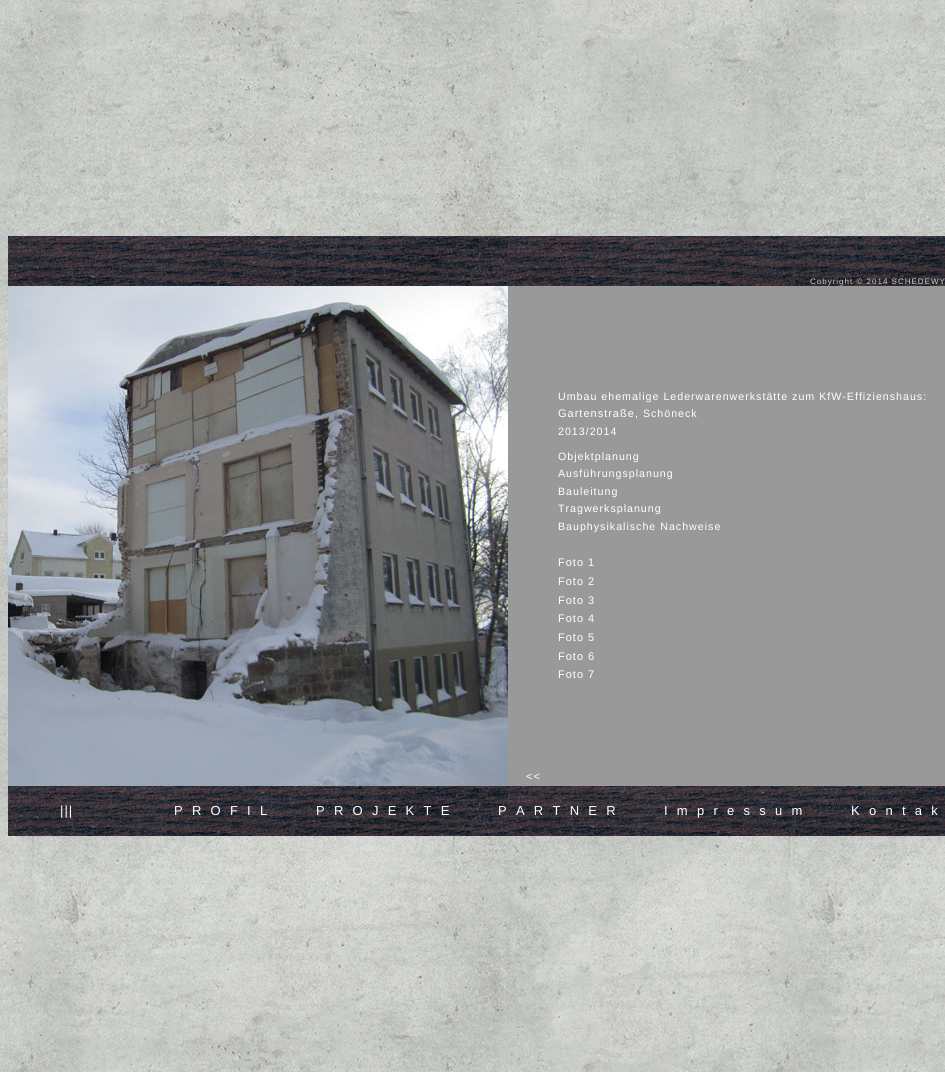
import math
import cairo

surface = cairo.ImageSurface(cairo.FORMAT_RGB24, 945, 1072)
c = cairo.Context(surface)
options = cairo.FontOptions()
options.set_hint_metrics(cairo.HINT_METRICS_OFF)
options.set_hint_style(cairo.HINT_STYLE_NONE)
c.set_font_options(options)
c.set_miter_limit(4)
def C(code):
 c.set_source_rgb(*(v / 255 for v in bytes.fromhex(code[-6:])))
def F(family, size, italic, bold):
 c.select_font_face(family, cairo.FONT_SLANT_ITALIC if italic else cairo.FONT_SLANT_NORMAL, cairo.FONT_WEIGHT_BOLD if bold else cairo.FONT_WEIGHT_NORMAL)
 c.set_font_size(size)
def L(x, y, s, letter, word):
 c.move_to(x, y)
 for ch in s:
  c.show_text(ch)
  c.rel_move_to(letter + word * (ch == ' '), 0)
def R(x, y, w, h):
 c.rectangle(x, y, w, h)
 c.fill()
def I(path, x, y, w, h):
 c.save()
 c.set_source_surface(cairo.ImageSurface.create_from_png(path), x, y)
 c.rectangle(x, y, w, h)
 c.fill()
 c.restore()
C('ffffff')
c.paint()
I('1.png',0,0,945,1072)
I('2.png',8,236,937,50)
F('Liberation Sans',8,0,0)
C('cccccc')
L(810,284,'Cobyright © 2014 SCHEDEWY',1,0)
I('3.png',8,286,500,500)
C('999999')
R(508,286,437,500)
F('Liberation Sans',10.65,0,0)
C('ffffff')
L(558,400,'Umbau ehemalige Lederwarenwerkstätte zum KfW-Effizienshaus:',1,0)
F('Liberation Sans',11,0,0)
L(558,417,'Gartenstraße',1,0)
F('Liberation Sans',10.65,0,0)
L(635,417,', Schöneck',1,0)
L(558,435,'2013/2014',1,0)
L(558,460,'Objektplanung',1,0)
L(558,477,'Ausführungsplanung',1,0)
L(558,495,'Bauleitung',1,0)
L(558,512,'Tragwerksplanung',1,0)
L(558,530,'Bauphysikalische Nachweise',1,0)
F('Liberation Sans',11,0,0)
L(558,566,'Foto 1',1,0)
L(558,585,'Foto 2',1,0)
L(558,604,'Foto 3',1,0)
L(558,622,'Foto 4',1,0)
L(558,641,'Foto 5',1,0)
L(558,660,'Foto 6',1,0)
L(558,678,'Foto 7',1,0)
L(526,780,'<<',1,0)
I('2.png',8,786,937,50)
F('Liberation Sans',13,0,0)
L(60,815,'|||',1,0)
L(174,815,'PROFIL',9.25,0)
L(316,815,'PROJEKTE',9.25,0)
L(498,815,'PARTNER',9.25,0)
L(664,815,'Impressum',9.25,0)
L(851,815,'Kontak',9.25,0)
surface.write_to_png('o.png')
